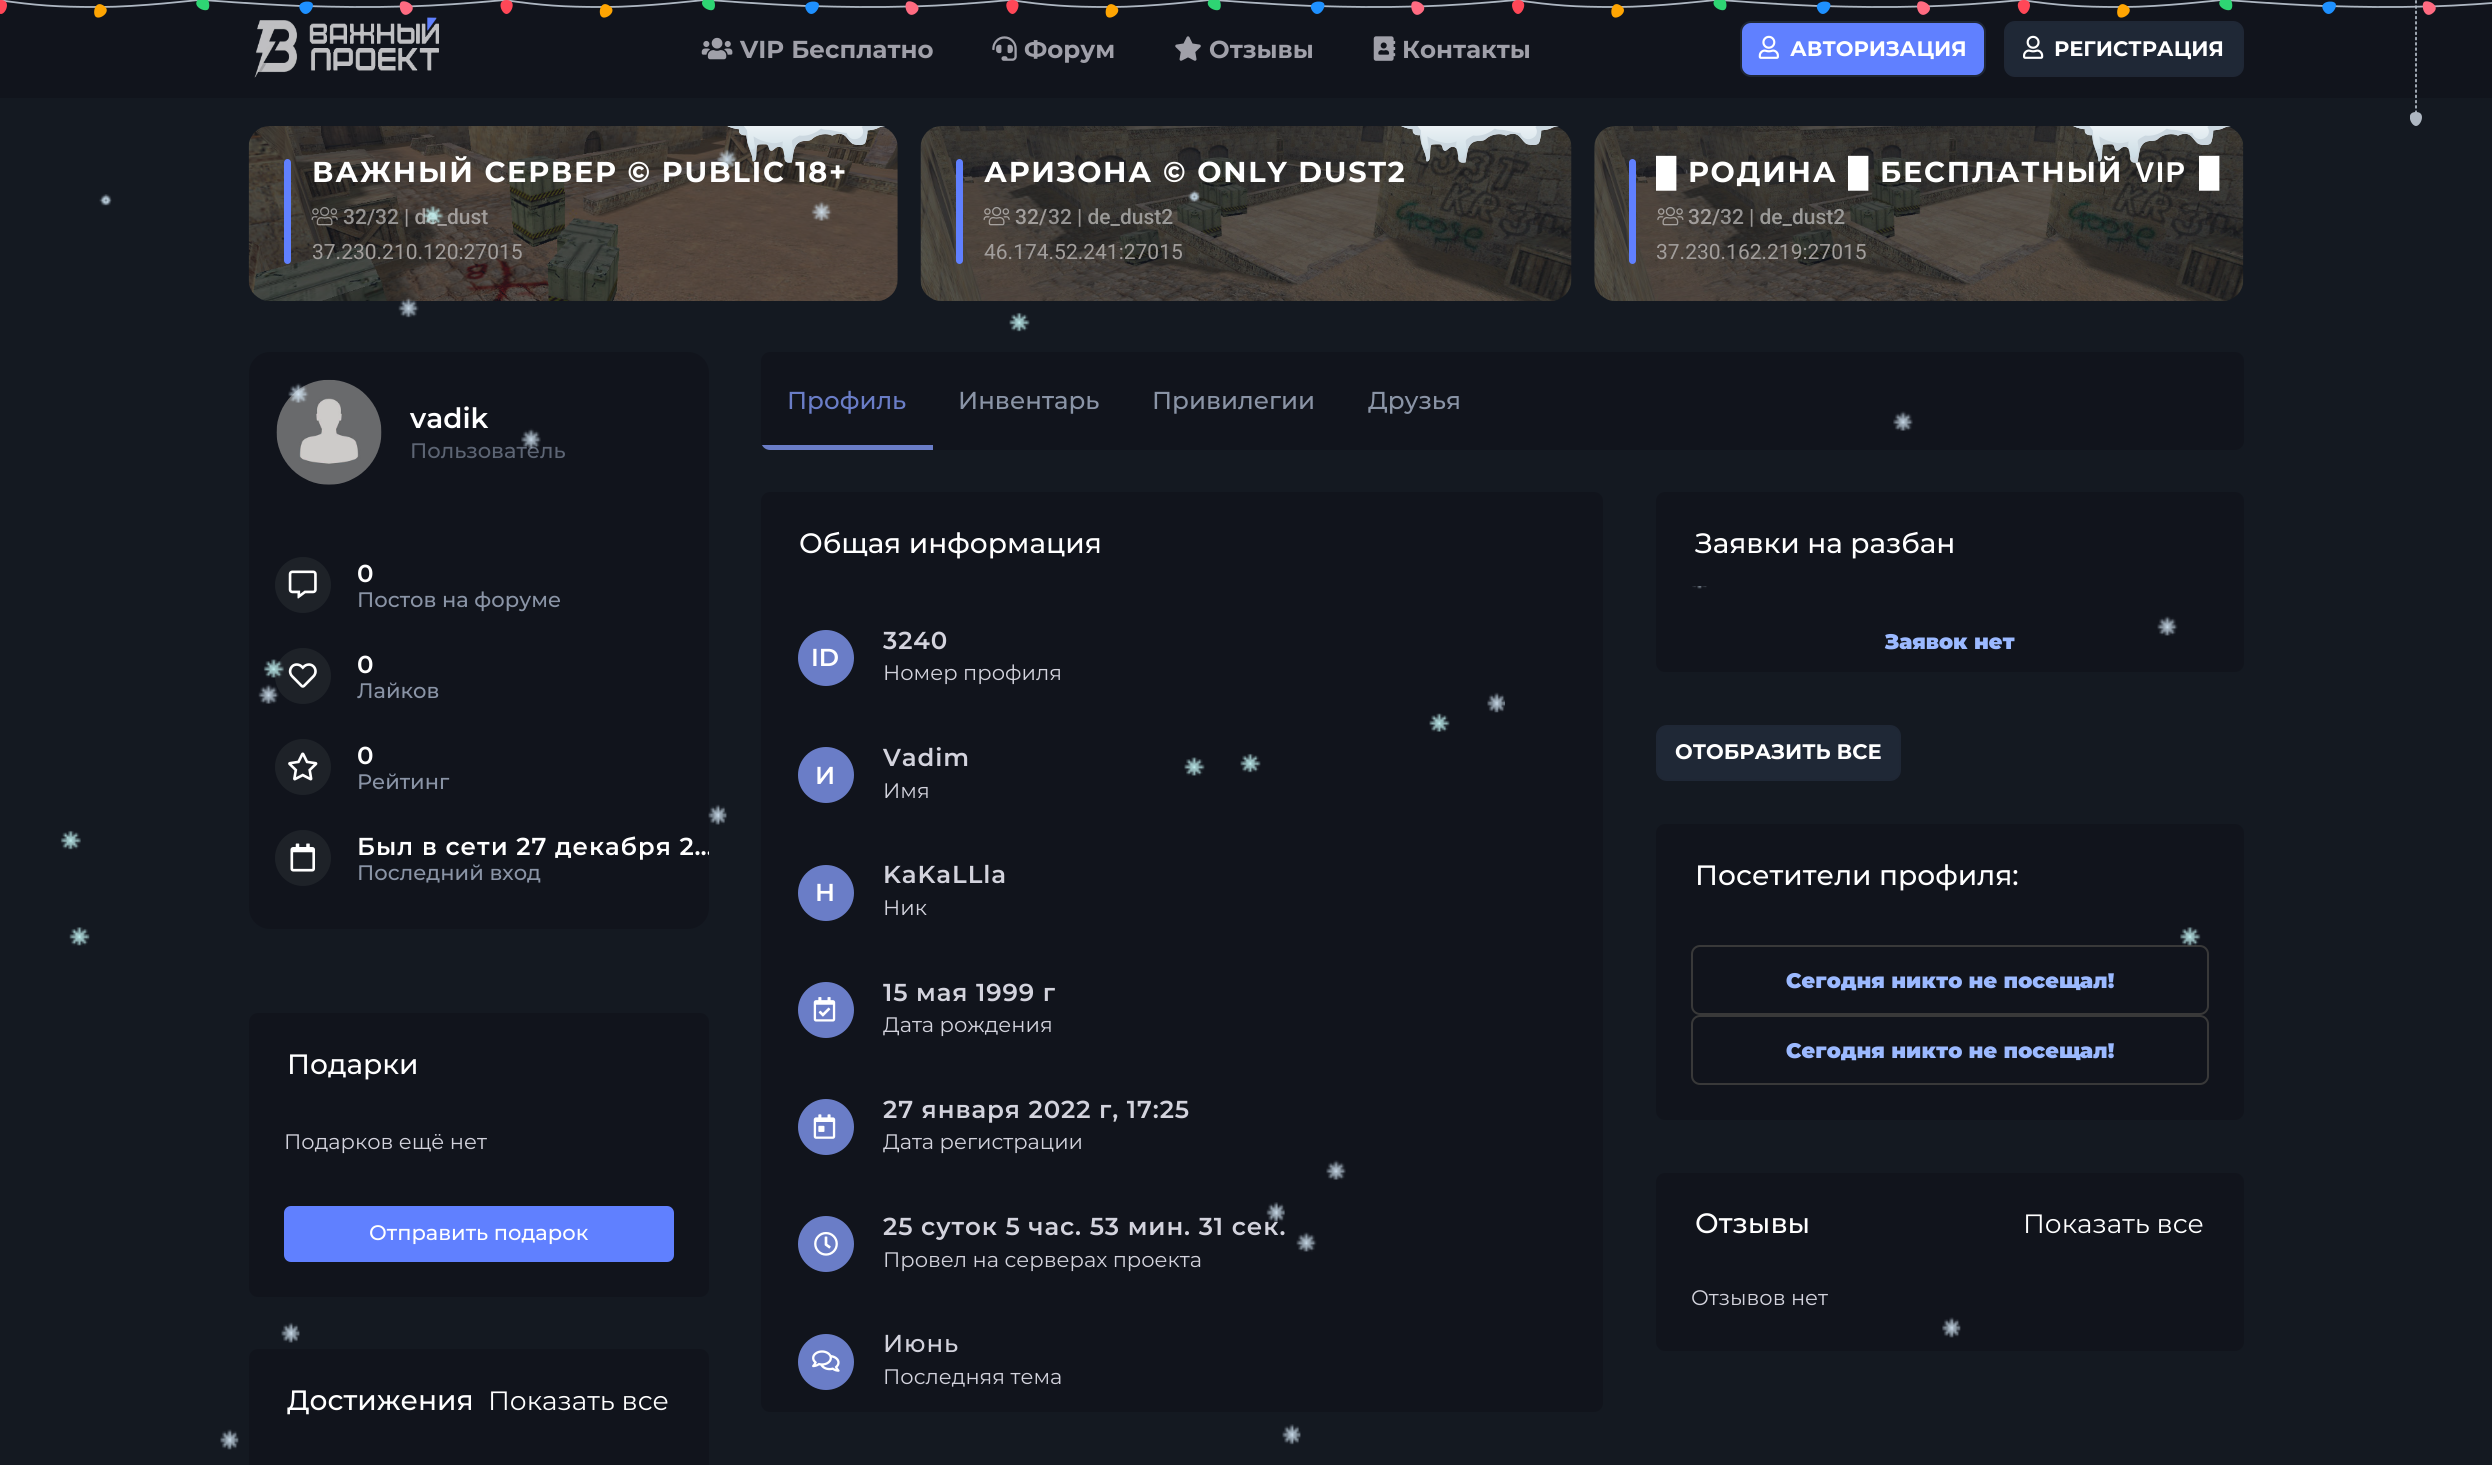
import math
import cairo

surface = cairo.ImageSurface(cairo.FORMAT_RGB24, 2492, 1465)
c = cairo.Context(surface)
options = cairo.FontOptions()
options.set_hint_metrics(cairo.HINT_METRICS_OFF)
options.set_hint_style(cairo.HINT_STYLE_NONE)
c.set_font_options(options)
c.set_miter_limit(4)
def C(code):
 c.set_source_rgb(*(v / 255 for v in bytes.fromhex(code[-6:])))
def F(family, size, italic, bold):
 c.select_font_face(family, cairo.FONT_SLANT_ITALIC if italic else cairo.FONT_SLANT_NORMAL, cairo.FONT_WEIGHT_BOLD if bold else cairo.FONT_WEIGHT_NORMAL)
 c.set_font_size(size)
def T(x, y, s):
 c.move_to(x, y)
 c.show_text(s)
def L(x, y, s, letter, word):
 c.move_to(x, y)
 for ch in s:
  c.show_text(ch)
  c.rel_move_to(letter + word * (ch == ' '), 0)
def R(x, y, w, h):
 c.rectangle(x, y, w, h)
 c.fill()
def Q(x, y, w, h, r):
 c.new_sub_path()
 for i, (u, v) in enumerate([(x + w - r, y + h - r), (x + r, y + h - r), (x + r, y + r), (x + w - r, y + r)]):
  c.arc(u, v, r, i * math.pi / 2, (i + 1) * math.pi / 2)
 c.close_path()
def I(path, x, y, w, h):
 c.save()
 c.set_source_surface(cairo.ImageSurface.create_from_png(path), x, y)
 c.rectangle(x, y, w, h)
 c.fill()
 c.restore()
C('141921')
c.paint()
C('11141c')
R(0,0,2492,98)
c.new_path()
c.move_to(-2,0)
c.curve_to(36,5.5,58,7,96,7)
C('aeb7c2')
c.set_line_width(1.8)
c.stroke()
C('ff4757')
c.new_path()
c.move_to(1,14)
c.curve_to(-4,14,-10,0,1,0)
c.curve_to(11.5,0,6,14,1,14)
c.close_path()
c.fill()
c.new_path()
c.move_to(198,0)
c.curve_to(198,0,138,7,100,7)
C('aeb7c2')
c.stroke()
C('ffa502')
c.new_path()
c.move_to(96,17)
c.curve_to(92,14.5,94.5,-.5,103.5,5.5)
c.curve_to(112.5,11,100.5,20,96,17)
c.close_path()
c.fill()
c.new_path()
c.move_to(203,0)
c.curve_to(203,0,252,4,301,6)
C('aeb7c2')
c.stroke()
C('2ed573')
c.new_path()
c.move_to(208,9.5)
c.curve_to(204,12.5,190.5,5.5,199,-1.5)
c.curve_to(207.5,-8.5,211.5,6,208,9.5)
c.close_path()
c.fill()
c.new_path()
c.move_to(304.5,6)
c.curve_to(337,7,370,7.5,402.5,6.5)
C('aeb7c2')
c.stroke()
C('1e90ff')
c.new_path()
c.move_to(312.5,3.5)
c.curve_to(315,7.5,306.5,20,300.5,10.5)
c.curve_to(295,1.5,310,-.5,312.5,3.5)
c.close_path()
c.fill()
c.new_path()
c.move_to(505,0)
c.curve_to(466,3.5,438.5,5.5,407,6.5)
C('aeb7c2')
c.stroke()
C('ff6b81')
c.new_path()
c.move_to(401,2)
c.curve_to(405,-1,418.5,6,410,13)
c.curve_to(401.5,20,397.5,5.5,401,2)
c.close_path()
c.fill()
c.new_path()
c.move_to(504,0)
c.curve_to(542,5.5,563.5,7,602,7)
C('aeb7c2')
c.stroke()
C('ff4757')
c.new_path()
c.move_to(506.5,14)
c.curve_to(501.5,14,496,0,506.5,0)
c.curve_to(517.5,0,511.5,14,506.5,14)
c.close_path()
c.fill()
c.new_path()
c.move_to(703.5,0)
c.curve_to(703.5,0,644,7,605.5,7)
C('aeb7c2')
c.stroke()
C('ffa502')
c.new_path()
c.move_to(602,17)
c.curve_to(597.5,14.5,600,-.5,609,5.5)
c.curve_to(618.5,11,606,20,602,17)
c.close_path()
c.fill()
c.new_path()
c.move_to(709,0)
c.curve_to(709,0,758,4,807,6)
C('aeb7c2')
c.stroke()
C('2ed573')
c.new_path()
c.move_to(713.5,9.5)
c.curve_to(710,12.5,696.5,5.5,704.5,-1.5)
c.curve_to(713,-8.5,717.5,6,713.5,9.5)
c.close_path()
c.fill()
c.new_path()
c.move_to(810,6)
c.curve_to(843,7,875.5,7.5,908,6.5)
C('aeb7c2')
c.stroke()
C('1e90ff')
c.new_path()
c.move_to(818.5,3.5)
c.curve_to(821,7.5,812,20,806.5,10.5)
c.curve_to(801,1.5,816,-.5,818.5,3.5)
c.close_path()
c.fill()
c.new_path()
c.move_to(1010.5,0)
c.curve_to(971.5,3.5,944.5,5.5,912.5,6.5)
C('aeb7c2')
c.stroke()
C('ff6b81')
c.new_path()
c.move_to(907,2)
c.curve_to(910.5,-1,924,6,916,13)
c.curve_to(907.5,20,903,5.5,907,2)
c.close_path()
c.fill()
c.new_path()
c.move_to(1010,0)
c.curve_to(1047.5,5.5,1069.5,7,1108,7)
C('aeb7c2')
c.stroke()
C('ff4757')
c.new_path()
c.move_to(1012.5,14)
c.curve_to(1007.5,14,1001.5,0,1012.5,0)
c.curve_to(1023,0,1017.5,14,1012.5,14)
c.close_path()
c.fill()
c.new_path()
c.move_to(1209,0)
c.curve_to(1209,0,1149.5,7,1111,7)
C('aeb7c2')
c.stroke()
C('ffa502')
c.new_path()
c.move_to(1107.5,17)
c.curve_to(1103.5,14.5,1106,-.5,1115,5.5)
c.curve_to(1124,11,1112,20,1107.5,17)
c.close_path()
c.fill()
c.new_path()
c.move_to(1214.5,0)
c.curve_to(1214.5,0,1263.5,4,1312.5,6)
C('aeb7c2')
c.stroke()
C('2ed573')
c.new_path()
c.move_to(1219.5,9.5)
c.curve_to(1215.5,12.5,1202,5.5,1210.5,-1.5)
c.curve_to(1219,-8.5,1223,6,1219.5,9.5)
c.close_path()
c.fill()
c.new_path()
c.move_to(1316,6)
c.curve_to(1348.5,7,1381.5,7.5,1414,6.5)
C('aeb7c2')
c.stroke()
C('1e90ff')
c.new_path()
c.move_to(1324,3.5)
c.curve_to(1326.5,7.5,1318,20,1312,10.5)
c.curve_to(1306.5,1.5,1321.5,-.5,1324,3.5)
c.close_path()
c.fill()
c.new_path()
c.move_to(1516.5,0)
c.curve_to(1477.5,3.5,1450,5.5,1418.5,6.5)
C('aeb7c2')
c.stroke()
C('ff6b81')
c.new_path()
c.move_to(1412.5,2)
c.curve_to(1416.5,-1,1430,6,1421.5,13)
c.curve_to(1413,20,1409,5.5,1412.5,2)
c.close_path()
c.fill()
c.new_path()
c.move_to(1515.5,0)
c.curve_to(1553.5,5.5,1575,7,1613.5,7)
C('aeb7c2')
c.stroke()
C('ff4757')
c.new_path()
c.move_to(1518,14)
c.curve_to(1513,14,1507.5,0,1518,0)
c.curve_to(1529,0,1523,14,1518,14)
c.close_path()
c.fill()
c.new_path()
c.move_to(1715,0)
c.curve_to(1715,0,1655.5,7,1617,7)
C('aeb7c2')
c.stroke()
C('ffa502')
c.new_path()
c.move_to(1613.5,17)
c.curve_to(1609,14.5,1611.5,-.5,1620.5,5.5)
c.curve_to(1630,11,1617.5,20,1613.5,17)
c.close_path()
c.fill()
c.new_path()
c.move_to(1720,0)
c.curve_to(1720,0,1769.5,4,1818,6)
C('aeb7c2')
c.stroke()
C('2ed573')
c.new_path()
c.move_to(1725,9.5)
c.curve_to(1721.5,12.5,1708,5.5,1716,-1.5)
c.curve_to(1724.5,-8.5,1729,6,1725,9.5)
c.close_path()
c.fill()
c.new_path()
c.move_to(1822,6)
c.curve_to(1854.5,7,1887,7.5,1920,6.5)
C('aeb7c2')
c.stroke()
C('1e90ff')
c.new_path()
c.move_to(1830,3.5)
c.curve_to(1832.5,7.5,1823.5,20,1818,10.5)
c.curve_to(1812.5,1.5,1827.5,-.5,1830,3.5)
c.close_path()
c.fill()
c.new_path()
c.move_to(2022,0)
c.curve_to(1983,3.5,1956,5.5,1924,6.5)
C('aeb7c2')
c.stroke()
C('ff6b81')
c.new_path()
c.move_to(1918.5,2)
c.curve_to(1922,-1,1935.5,6,1927.5,13)
c.curve_to(1919,20,1914.5,5.5,1918.5,2)
c.close_path()
c.fill()
c.new_path()
c.move_to(2021,0)
c.curve_to(2059,5.5,2081,7,2119,7)
C('aeb7c2')
c.stroke()
C('ff4757')
c.new_path()
c.move_to(2024,14)
c.curve_to(2019,14,2013,0,2024,0)
c.curve_to(2034.5,0,2029,14,2024,14)
c.close_path()
c.fill()
c.new_path()
c.move_to(2221,0)
c.curve_to(2221,0,2161,7,2123,7)
C('aeb7c2')
c.stroke()
C('ffa502')
c.new_path()
c.move_to(2119,17)
c.curve_to(2115,14.5,2117.5,-.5,2126.5,5.5)
c.curve_to(2135.5,11,2123.5,20,2119,17)
c.close_path()
c.fill()
c.new_path()
c.move_to(2226,0)
c.curve_to(2226,0,2275,4,2324,6)
C('aeb7c2')
c.stroke()
C('2ed573')
c.new_path()
c.move_to(2231,9.5)
c.curve_to(2227,12.5,2213.5,5.5,2222,-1.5)
c.curve_to(2230.5,-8.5,2234.5,6,2231,9.5)
c.close_path()
c.fill()
c.new_path()
c.move_to(2327.5,6)
c.curve_to(2360,7,2393,7.5,2425.5,6.5)
C('aeb7c2')
c.stroke()
C('1e90ff')
c.new_path()
c.move_to(2335.5,3.5)
c.curve_to(2338,7.5,2329.5,20,2323.5,10.5)
c.curve_to(2318,1.5,2333,-.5,2335.5,3.5)
c.close_path()
c.fill()
c.new_path()
c.move_to(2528,0)
c.curve_to(2489,3.5,2461.5,5.5,2430,6.5)
C('aeb7c2')
c.stroke()
C('ff6b81')
c.new_path()
c.move_to(2424,2)
c.curve_to(2428,-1,2441.5,6,2433,13)
c.curve_to(2424.5,20,2420.5,5.5,2424,2)
c.close_path()
c.fill()
I('1.png',254,17,185,61)
I('2.png',701,37,32,23)
F('Montserrat',24.5,0,1)
C('a0a0a9')
T(740,58,'VIP Бесплатно')
I('3.png',992,36,25,25)
T(1024,58,'Форум')
I('4.png',1175,36,26,25)
T(1209,58,'Отзывы')
I('5.png',1373,36,23,25)
T(1402,58,'Контакты')
C('6080ff')
Q(1741,22,244,54,10)
c.fill_preserve()
C('1f2735')
c.set_line_width(2)
c.stroke()
I('6.png',1758,35,21,24)
F('Montserrat',21,0,1)
C('ffffff')
T(1790,56,'АВТОРИЗАЦИЯ')
C('1f2836')
Q(2005,22,238,54,10)
c.fill_preserve()
C('1f2735')
c.stroke()
I('7.png',2023,35,21,24)
C('ffffff')
T(2054,56,'РЕГИСТРАЦИЯ')
I('8.png',248,126,650,175)
F('Montserrat',28.75,0,1)
L(312,182,'ВАЖНЫЙ СЕРВЕР © PUBLIC 18+',1.75,0)
I('9.png',727,126,158,37)
C('6080ff')
Q(284,159,7,105,3.5)
c.fill()
I('10.png',311,206,27,20)
F('Roboto Medium',21,0,0)
C('959392')
T(343,224,'32')
T(367,224,'/')
T(375,224,'32')
C('a29e9c')
T(404,224,'| de_dust')
F('Roboto',21,0,0)
T(312,259,'37.230.210.120:27015')
I('11.png',920,126,652,175)
F('Montserrat',28.75,0,1)
C('ffffff')
L(984,182,'АРИЗОНА © ONLY DUST2',1.75,0)
I('12.png',1401,126,158,37)
C('6080ff')
Q(956,159,7,105,3.5)
c.fill()
I('13.png',983,206,27,20)
F('Roboto Medium',21,0,0)
C('a29e9c')
T(1015,224,'32')
T(1039,224,'/')
C('959392')
T(1048,224,'32')
C('9b9a98')
T(1077,224,'| de_dust2')
F('Roboto',21,0,0)
C('a29e9c')
T(984,259,'46.174.52.241:27015')
I('14.png',1594,126,650,175)
F('Montserrat',28.75,0,1)
C('ffffff')
L(1880,182,'БЕСПЛАТНЫЙ',1.75,0)
F('Liberation Sans',28.75,0,1)
L(2135,182,'VIP',1.75,0)
L(2199,182,'█',1.75,0)
I('15.png',2073,126,158,37)
C('6080ff')
Q(1629,159,7,105,3.5)
c.fill()
C('ffffff')
L(1656,182,'█',1.75,0)
F('Montserrat',28.75,0,1)
L(1688,182,'РОДИНА',1.75,0)
F('Liberation Sans',28.75,0,1)
L(1848,182,'█',1.75,0)
I('16.png',1657,206,27,20)
F('Roboto Medium',21,0,0)
C('a29e9c')
T(1688,224,'32')
T(1712,224,'/')
C('959392')
T(1720,224,'32')
C('9b9a98')
T(1749,224,'| de_dust2')
F('Roboto',21,0,0)
C('a29e9c')
T(1656,259,'37.230.162.219:27015')
C('11141c')
Q(249,352,460,577,21)
c.fill()
I('17.png',276,379,106,106)
F('Montserrat SemiBold',28,0,0)
C('ffffff')
T(410,428,'vadik')
F('Montserrat Medium',21,0,0)
C('5d6574')
T(410,458,'Пользователь')
C('1e2228')
c.new_path()
c.arc(303,585,28,0,2 * math.pi)
c.fill()
I('18.png',288,570,29,29)
F('Montserrat SemiBold',24.5,0,0)
C('ffffff')
L(357,582,'0',.9,0)
F('Montserrat Medium',21,0,0)
C('8a94a6')
T(357,607,'Постов на форуме')
C('1e2228')
c.new_path()
c.arc(303,676,28,0,2 * math.pi)
c.fill()
I('19.png',288,663,29,25)
F('Montserrat SemiBold',24.5,0,0)
C('ffffff')
L(357,673,'0',.9,0)
F('Montserrat Medium',21,0,0)
C('8a94a6')
T(357,698,'Лайков')
C('1e2228')
c.new_path()
c.arc(303,767,28,0,2 * math.pi)
c.fill()
I('20.png',288,752,30,29)
F('Montserrat SemiBold',24.5,0,0)
C('ffffff')
L(357,764,'0',.9,0)
F('Montserrat Medium',21,0,0)
C('8a94a6')
T(357,789,'Рейтинг')
C('1e2228')
c.new_path()
c.arc(303,858,28,0,2 * math.pi)
c.fill()
I('21.png',290,843,25,29)
c.save()
Q(249,352,460,577,21)
c.clip()
F('Montserrat SemiBold',24.5,0,0)
C('ffffff')
L(357,855,'Был в сети 27 декабря 2…',.9,0)
c.restore()
C('8a94a6')
T(357,880,'Последний вход')
C('11141c')
Q(249,1013,460,284,9)
c.fill()
F('Montserrat Medium',28,0,0)
C('ffffff')
T(287,1074,'Подарки')
F('Montserrat',21,0,0)
C('d3d3dd')
T(284,1149,'Подарков ещё нет')
C('6080ff')
Q(284,1206,390,56,7)
c.fill()
F('Montserrat Medium',21,0,0)
C('ffffff')
T(369,1240,'Отправить подарок')
C('11141c')
Q(249,1349,460,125,9)
c.fill()
F('Montserrat Medium',28,0,0)
C('ffffff')
T(287,1410,'Достижения')
F('Montserrat',26.5,0,0)
T(488,1410,'Показать все')
C('11141c')
Q(761,352,1483,98,9)
c.fill()
c.save()
Q(761,352,1483,98,9)
c.clip()
C('6a7dc7')
R(761,445,172,5)
c.restore()
F('Montserrat Medium',24.5,0,0)
C('6a7dc7')
T(787,409,'Профиль')
C('8a94a6')
T(958,409,'Инвентарь')
T(1152,409,'Привилегии')
T(1368,409,'Друзья')
C('11141c')
Q(761,492,842,920,9)
c.fill()
F('Montserrat Medium',28,0,0)
C('ffffff')
T(799,553,'Общая информация')
C('6a7dc7')
c.new_path()
c.arc(826,658,28,0,2 * math.pi)
c.fill()
F('Montserrat SemiBold',24.5,0,0)
C('ffffff')
T(811,666,'ID')
C('d3d3dd')
L(883,649,'3240',.9,0)
F('Montserrat',21,0,0)
T(883,680,'Номер профиля')
C('6a7dc7')
c.new_path()
c.arc(826,775,28,0,2 * math.pi)
c.fill()
F('Montserrat SemiBold',24.5,0,0)
C('ffffff')
T(815,784,'И')
C('d3d3dd')
L(883,766,'Vadim',.9,0)
F('Montserrat',21,0,0)
T(883,798,'Имя')
C('6a7dc7')
c.new_path()
c.arc(826,893,28,0,2 * math.pi)
c.fill()
F('Montserrat SemiBold',24.5,0,0)
C('ffffff')
T(815,901,'Н')
C('d3d3dd')
L(883,883,'KaKaLLla',.9,0)
F('Montserrat',21,0,0)
T(883,915,'Ник')
C('6a7dc7')
c.new_path()
c.arc(826,1010,28,0,2 * math.pi)
c.fill()
I('22.png',813,997,23,25)
F('Montserrat SemiBold',24.5,0,0)
C('d3d3dd')
L(883,1001,'15 мая 1999 г',.9,0)
F('Montserrat',21,0,0)
T(883,1032,'Дата рождения')
C('6a7dc7')
c.new_path()
c.arc(826,1127,28,0,2 * math.pi)
c.fill()
I('23.png',813,1114,23,25)
F('Montserrat SemiBold',24.5,0,0)
C('d3d3dd')
L(883,1118,'27 января 2022 г, 17:25',.9,0)
F('Montserrat',21,0,0)
T(883,1149,'Дата регистрации')
C('6a7dc7')
c.new_path()
c.arc(826,1244,28,0,2 * math.pi)
c.fill()
I('24.png',814,1232,24,24)
F('Montserrat SemiBold',24.5,0,0)
C('d3d3dd')
L(883,1235,'25 суток 5 час. 53 мин. 31 сек.',.9,0)
F('Montserrat',21,0,0)
T(883,1267,'Провел на серверах проекта')
C('6a7dc7')
c.new_path()
c.arc(826,1362,28,0,2 * math.pi)
c.fill()
I('25.png',812,1350,28,22)
F('Montserrat Medium',24.5,0,0)
C('d3d3dd')
L(883,1352,'Июнь',.9,0)
F('Montserrat',21,0,0)
T(883,1384,'Последняя тема')
C('11141c')
Q(1656,492,588,180,9)
c.fill()
F('Montserrat Medium',28,0,0)
C('ffffff')
T(1695,553,'Заявки на разбан')
F('Montserrat Black',21,0,0)
C('9bb9ff')
T(1885,649,'Заявок нет')
C('1f2836')
Q(1657,726,243,54,10)
c.fill_preserve()
C('1f2735')
c.stroke()
F('Montserrat',21,0,1)
C('ffffff')
T(1675,759,'ОТОБРАЗИТЬ ВСЕ')
C('11141c')
Q(1656,824,588,296,9)
c.fill()
F('Montserrat Medium',28,0,0)
C('ffffff')
T(1695,885,'Посетители профиля:')
Q(1692,946,516,68,8)
C('393939')
c.stroke()
F('Montserrat Black',21,0,0)
C('9bb9ff')
T(1786,988,'Сегодня никто не посещал!')
Q(1692,1016,516,68,8)
C('393939')
c.stroke()
C('9bb9ff')
T(1786,1058,'Сегодня никто не посещал!')
C('11141c')
Q(1656,1173,588,178,9)
c.fill()
F('Montserrat Medium',28,0,0)
C('ffffff')
T(1695,1233,'Отзывы')
F('Montserrat',26.5,0,0)
T(2023,1233,'Показать все')
F('Montserrat',21,0,0)
C('d3d3dd')
T(1691,1305,'Отзывов нет')
c.new_path()
c.move_to(2416,-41)
c.line_to(2416,114.5)
C('aeb7c2')
c.set_line_width(1.8)
c.set_line_cap(cairo.LINE_CAP_ROUND)
c.set_dash([1.75,3.5])
c.stroke()
c.save()
c.rectangle(2410,0,12,144)
c.clip()
c.new_path()
c.move_to(2416,126)
c.curve_to(2411,126,2405,112,2416,112)
c.curve_to(2426.5,112,2421,126,2416,126)
c.fill()
c.restore()
I('26.png',717,148,20,21)
I('27.png',99,194,13,12)
I('28.png',423,206,21,19)
I('29.png',811,201,21,20)
I('30.png',1188,190,13,12)
I('31.png',398,297,21,21)
I('32.png',1009,312,21,20)
I('33.png',288,383,21,20)
I('34.png',1893,411,20,20)
I('35.png',521,428,20,21)
I('36.png',1692,586,15,3)
I('37.png',2157,616,21,20)
I('38.png',263,659,21,19)
I('39.png',258,684,21,20)
I('40.png',1487,692,18,21)
I('41.png',1429,713,21,19)
I('42.png',1184,757,21,19)
I('43.png',1240,753,21,20)
I('44.png',708,804,19,21)
I('45.png',60,830,21,20)
I('46.png',69,927,21,19)
I('47.png',2180,927,21,19)
I('48.png',1326,1160,20,20)
I('49.png',1266,1202,19,20)
I('50.png',1296,1232,21,20)
I('51.png',281,1322,19,21)
I('52.png',1942,1317,19,21)
I('53.png',220,1429,19,21)
I('54.png',1282,1424,19,21)
surface.write_to_png('o.png')
